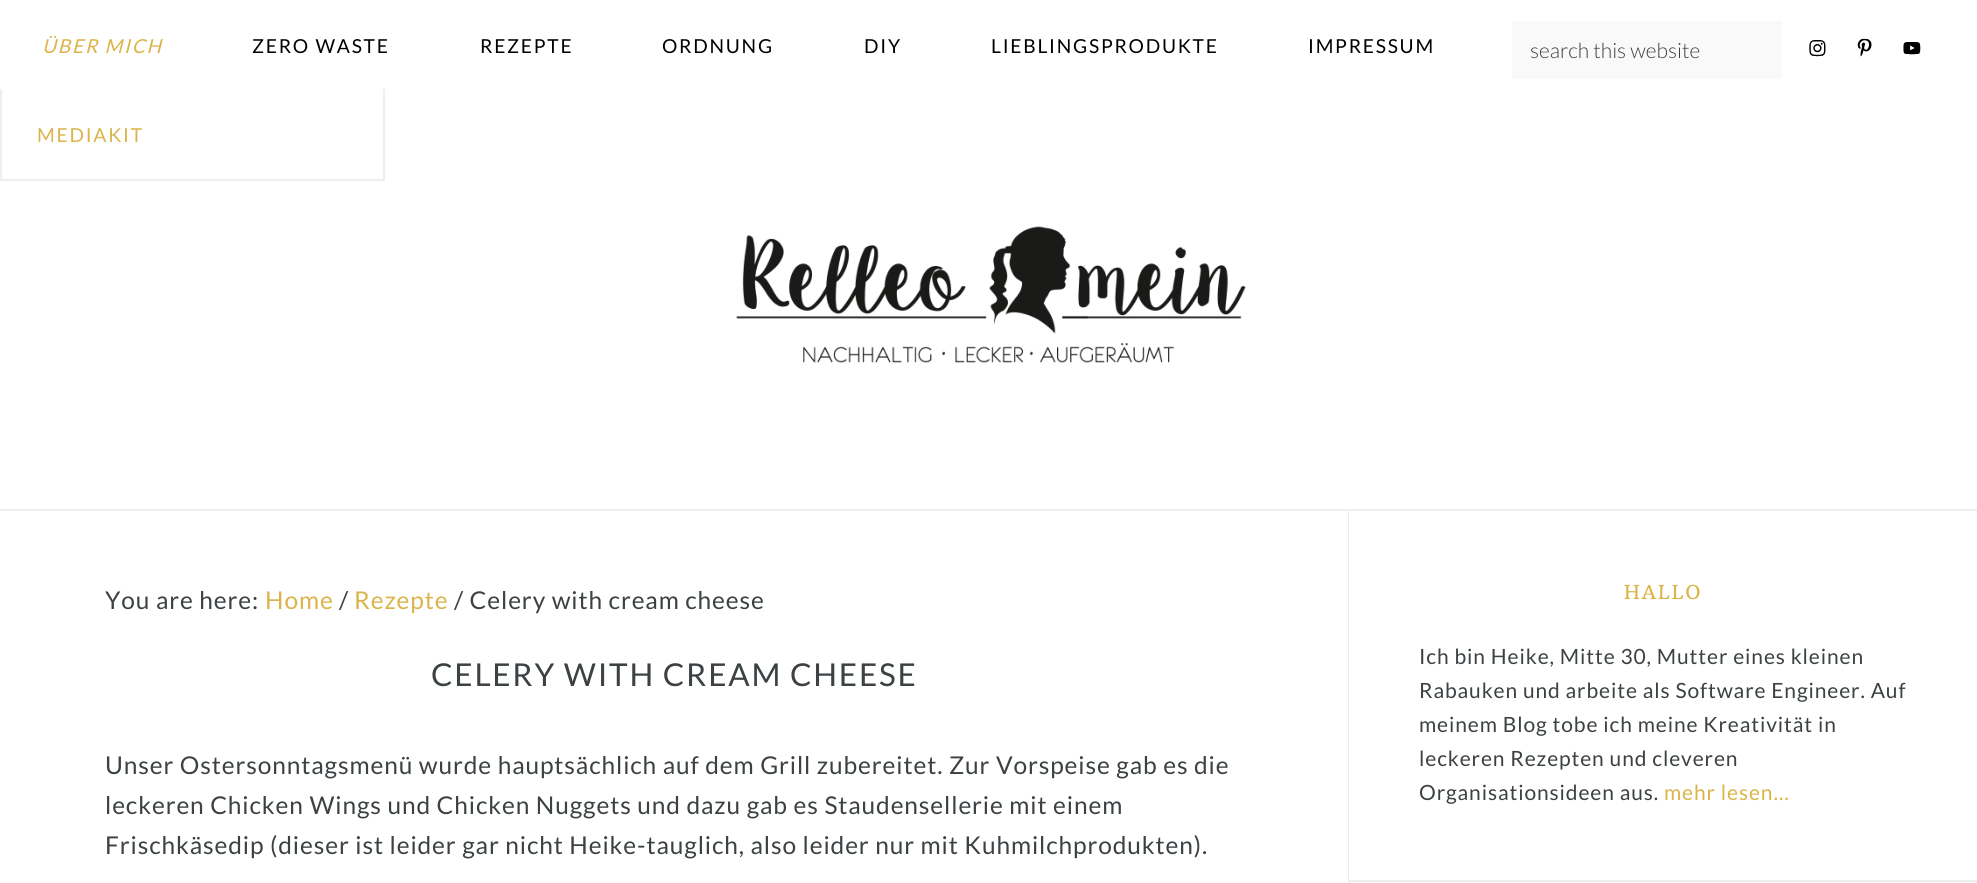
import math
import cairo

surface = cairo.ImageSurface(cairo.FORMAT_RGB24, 1977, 883)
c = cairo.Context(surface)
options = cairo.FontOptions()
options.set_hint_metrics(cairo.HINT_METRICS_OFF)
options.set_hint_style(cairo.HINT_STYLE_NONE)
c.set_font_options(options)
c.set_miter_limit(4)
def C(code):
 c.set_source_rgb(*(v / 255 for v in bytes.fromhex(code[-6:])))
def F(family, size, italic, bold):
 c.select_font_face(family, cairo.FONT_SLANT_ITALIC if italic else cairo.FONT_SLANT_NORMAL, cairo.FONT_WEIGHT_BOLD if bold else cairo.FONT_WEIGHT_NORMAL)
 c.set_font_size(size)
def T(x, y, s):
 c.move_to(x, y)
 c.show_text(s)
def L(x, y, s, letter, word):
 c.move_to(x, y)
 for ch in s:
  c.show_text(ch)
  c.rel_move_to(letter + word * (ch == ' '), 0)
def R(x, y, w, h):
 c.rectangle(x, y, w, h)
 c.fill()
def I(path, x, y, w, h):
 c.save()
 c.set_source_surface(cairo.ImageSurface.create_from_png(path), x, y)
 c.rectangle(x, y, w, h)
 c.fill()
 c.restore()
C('ffffff')
c.paint()
F('Lato',19.25,1,0)
C('dbb44a')
L(42,53,'ÜBER MICH',1.75,0)
C('eeeeee')
R(383,89,2,91)
R(0,179,385,2)
R(0,89,2,91)
F('Lato',19.25,0,0)
C('dbb44a')
L(37,142,'MEDIAKIT',1.75,0)
C('000000')
L(252,53,'ZERO WASTE',1.75,0)
L(480,53,'REZEPTE',1.75,0)
L(662,53,'ORDNUNG',1.75,0)
L(864,53,'DIY',1.75,0)
L(991,53,'LIEBLINGSPRODUKTE',1.75,0)
L(1308,53,'IMPRESSUM',1.75,0)
C('f9f9f9')
R(1512,21,270,58)
F('Lato Light',21,0,0)
C('3c4143')
T(1530,58,'search this website')
I('1.png',1809,40,17,17)
I('2.png',1857,38,15,19)
I('3.png',1903,42,18,13)
I('4.png',736,226,510,137)
C('eeeeee')
R(0,509,1977,2)
F('Lato',24.5,0,0)
C('3c4143')
L(105,609,'You are here:',.88,0)
C('dbb44a')
L(265,609,'Home',.88,0)
C('3c4143')
L(339,609,'/',.88,0)
C('dbb44a')
L(354,609,'Rezepte',.88,0)
C('3c4143')
L(454,609,'/ Celery with cream cheese',.88,0)
F('Lato',31.5,0,0)
L(431,686,'CELERY WITH CREAM CHEESE',1.75,0)
F('Lato',24.5,0,0)
L(105,774,'Unser Ostersonntagsmenü wurde hauptsächlich auf dem Grill zubereitet. Zur Vorspeise gab es die',.88,0)
L(105,814,'leckeren Chicken Wings und Chicken Nuggets und dazu gab es Staudensellerie mit einem',.88,0)
L(105,854,'Frischkäsedip (dieser ist leider gar nicht Heike-tauglich, also leider nur mit Kuhmilchprodukten).',.88,0)
C('eeeeee')
R(1348,511,1,372)
R(1349,880,628,2)
F('Arbutus Slab',19.25,0,0)
C('dbb44a')
L(1624,599,'HALLO',1.75,0)
F('Lato',21,0,0)
C('3c4143')
L(1419,664,'Ich bin Heike, Mitte 30, Mutter eines kleinen',.88,0)
L(1419,698,'Rabauken und arbeite als Software Engineer. Auf',.88,0)
L(1419,732,'meinem Blog tobe ich meine Kreativität in',.88,0)
L(1419,766,'leckeren Rezepten und cleveren',.88,0)
L(1419,800,'Organisationsideen aus.',.88,0)
C('dbb44a')
L(1664,800,'mehr lesen…',.88,0)
surface.write_to_png('o.png')
